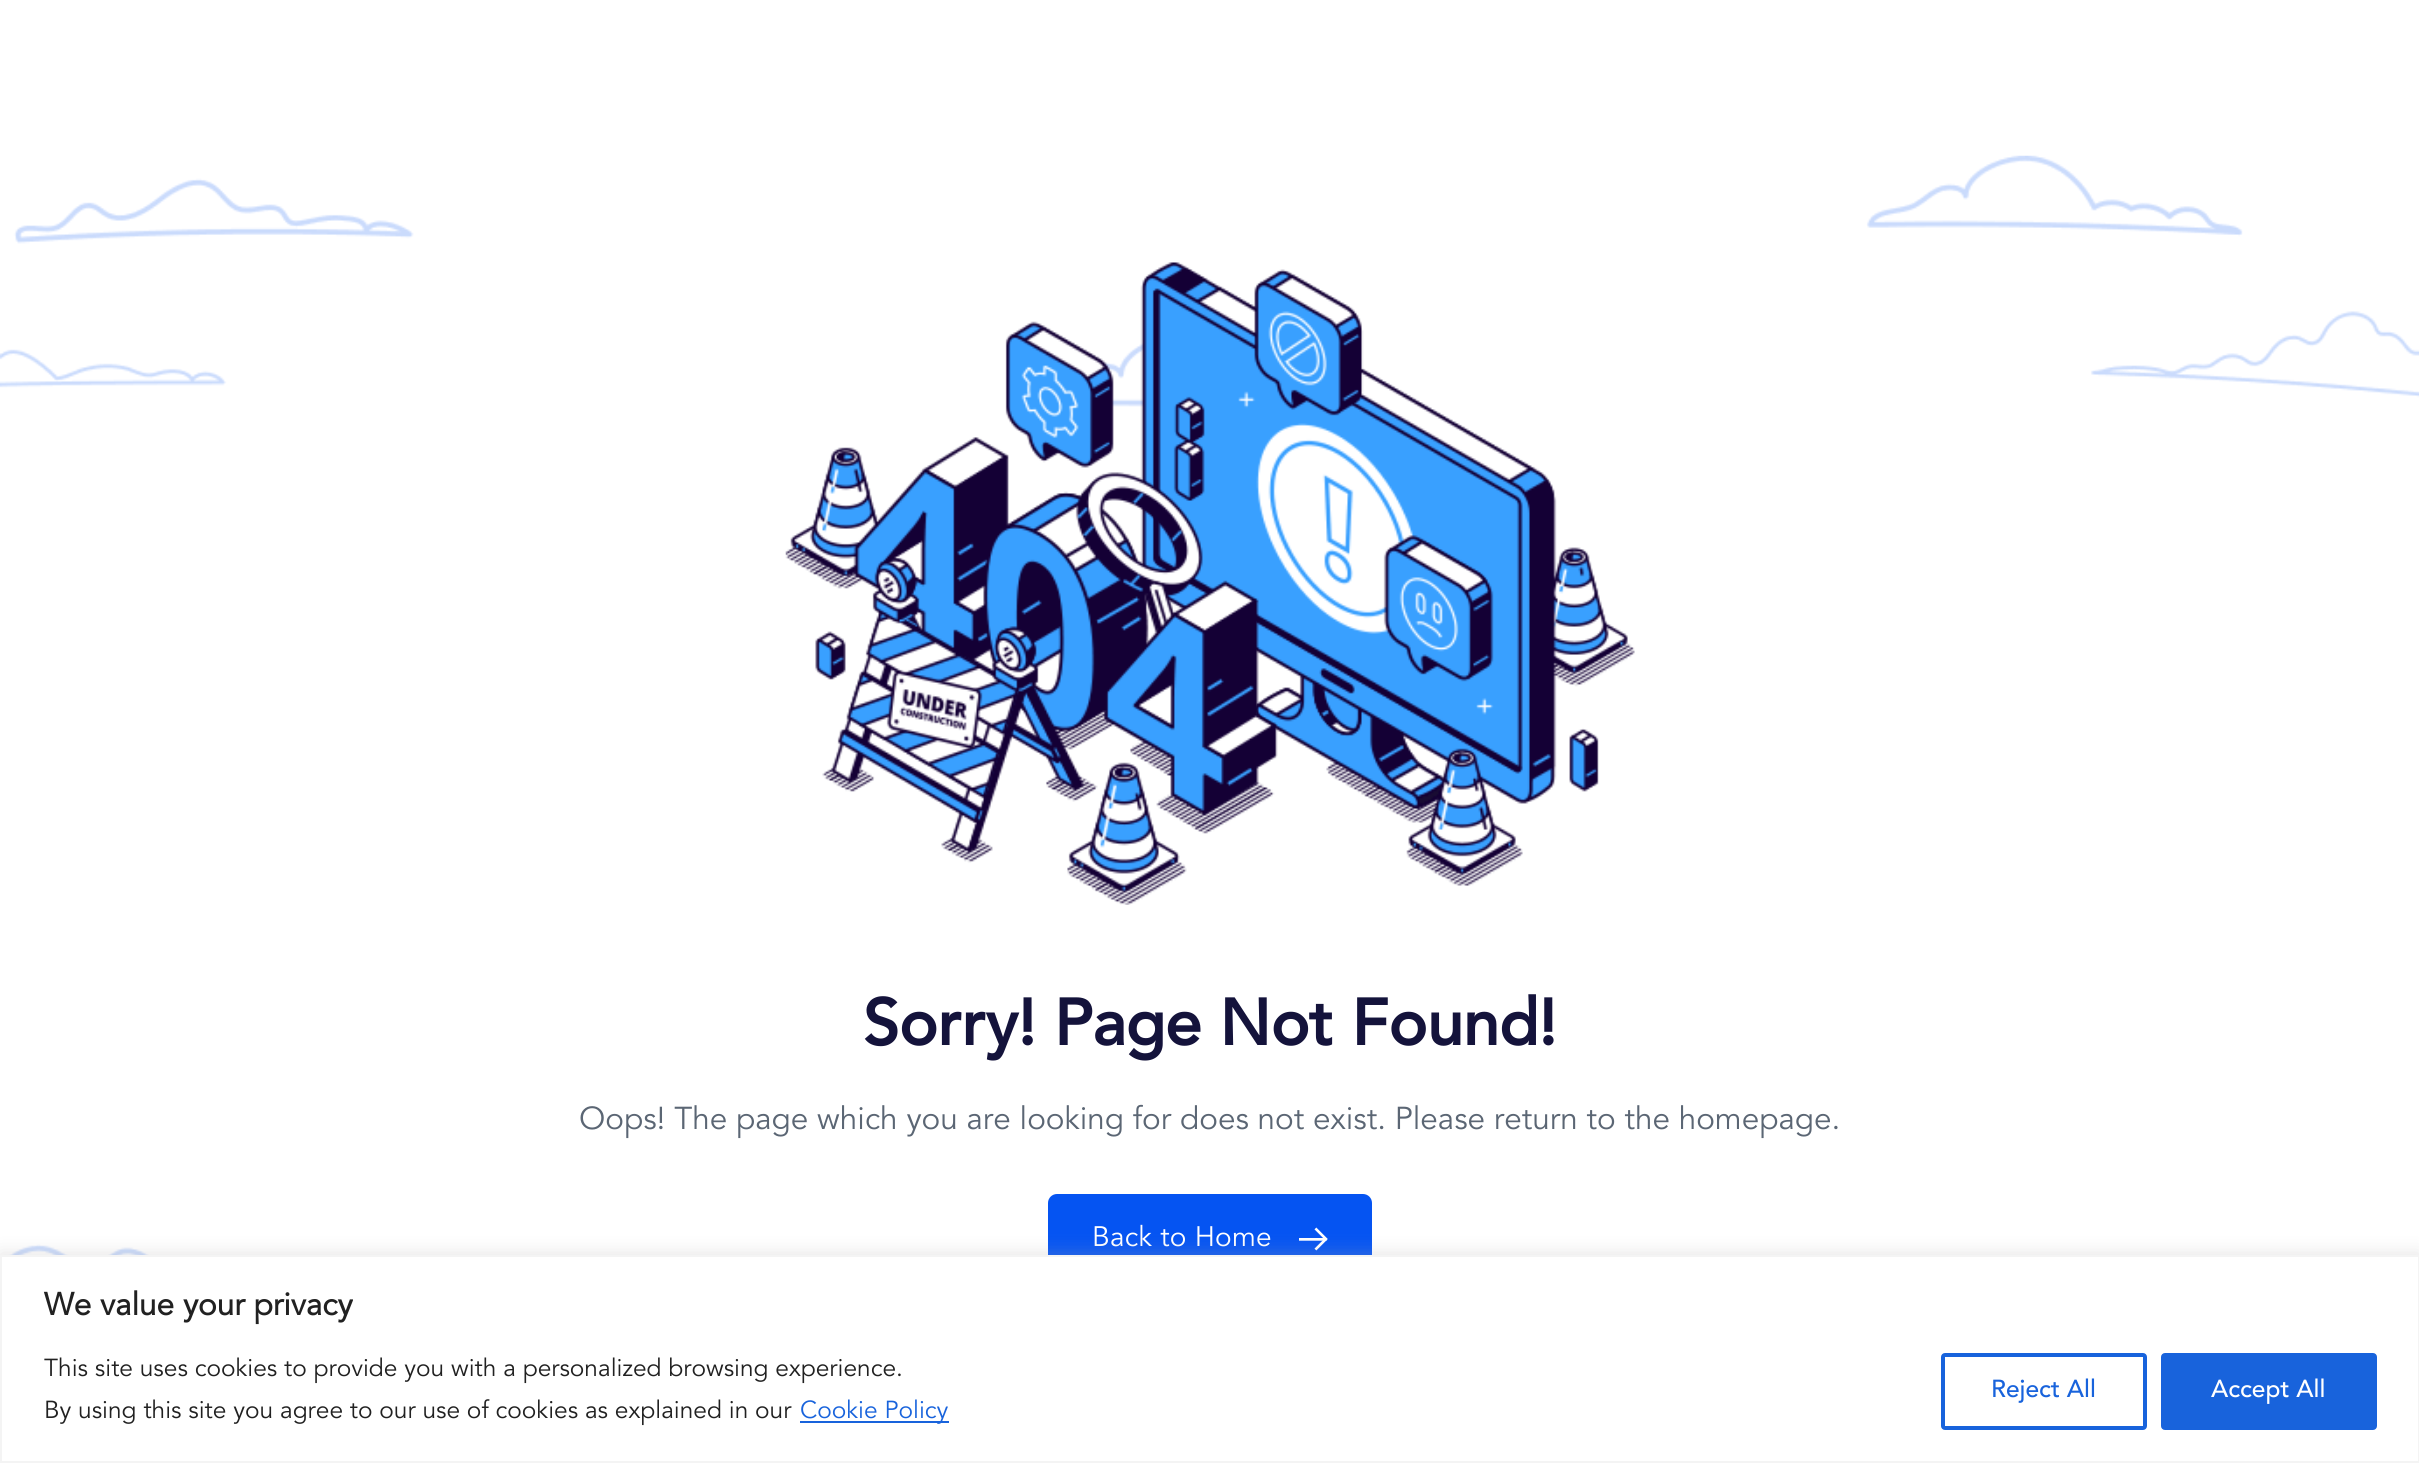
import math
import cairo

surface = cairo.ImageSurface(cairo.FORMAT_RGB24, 2419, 1463)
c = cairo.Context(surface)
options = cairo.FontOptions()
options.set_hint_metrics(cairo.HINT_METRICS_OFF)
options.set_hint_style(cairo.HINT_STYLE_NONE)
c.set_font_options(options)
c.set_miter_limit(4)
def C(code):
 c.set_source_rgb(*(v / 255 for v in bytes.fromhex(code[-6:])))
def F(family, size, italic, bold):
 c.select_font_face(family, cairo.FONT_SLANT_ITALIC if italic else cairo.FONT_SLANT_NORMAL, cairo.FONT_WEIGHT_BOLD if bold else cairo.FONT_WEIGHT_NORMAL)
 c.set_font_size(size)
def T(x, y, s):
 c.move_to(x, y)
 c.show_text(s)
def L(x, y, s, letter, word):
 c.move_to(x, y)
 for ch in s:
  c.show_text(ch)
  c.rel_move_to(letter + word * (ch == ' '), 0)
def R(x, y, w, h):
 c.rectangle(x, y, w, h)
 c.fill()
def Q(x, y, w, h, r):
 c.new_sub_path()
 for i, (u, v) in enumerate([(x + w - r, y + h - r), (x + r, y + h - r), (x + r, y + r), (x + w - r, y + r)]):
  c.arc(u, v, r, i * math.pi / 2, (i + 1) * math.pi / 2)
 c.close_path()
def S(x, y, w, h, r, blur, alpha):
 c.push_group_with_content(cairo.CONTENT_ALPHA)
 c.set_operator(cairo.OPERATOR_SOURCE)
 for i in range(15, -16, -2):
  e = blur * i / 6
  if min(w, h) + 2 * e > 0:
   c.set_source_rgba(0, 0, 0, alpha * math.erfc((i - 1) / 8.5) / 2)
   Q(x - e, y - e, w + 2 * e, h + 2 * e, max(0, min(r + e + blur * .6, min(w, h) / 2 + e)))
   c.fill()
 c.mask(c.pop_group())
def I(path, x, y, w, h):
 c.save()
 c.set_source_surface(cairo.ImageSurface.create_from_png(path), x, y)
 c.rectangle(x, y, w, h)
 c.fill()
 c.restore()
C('ffffff')
c.paint()
I('1.png',0,155,2419,1100)
I('2.png',1005,262,630,624)
I('3.png',785,437,493,468)
F('Avenir',64.75,0,1)
C('14133b')
T(863,1045,'Sorry! Page Not Found!')
F('Avenir',31.5,0,0)
C('5b6674')
T(579,1129,'Oops! The page which you are looking for does not exist. Please return to the homepage.')
C('0554f2')
Q(1048,1194,324,91,9)
c.fill()
F('Avenir',28,0,0)
C('ffffff')
L(1092,1246,'Back to Home',.25,0)
I('4.png',1299,1227,29,24)
C('acabab')
S(0,1253,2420,208,0,9,.3)
C('ffffff')
c.rectangle(1,1256,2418,206)
c.fill_preserve()
C('f4f4f4')
c.stroke()
F('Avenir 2',31.5,0,1)
C('212121')
T(44,1315,'We value your privacy')
F('Avenir',24.5,0,0)
T(44,1376,'This site uses cookies to provide you with a personalized browsing experience.')
T(44,1418,'By using this site you agree to our use of cookies as explained in our')
C('1863dc')
R(800,1421,149,2)
T(800,1418,'Cookie Policy')
Q(1943,1355,202,73,2)
c.set_line_width(4)
c.stroke()
F('Avenir Medium',24.5,0,0)
T(1991,1397,'Reject All')
Q(2163,1355,212,73,2)
c.fill_preserve()
c.stroke()
C('ffffff')
T(2211,1397,'Accept All')
surface.write_to_png('o.png')
